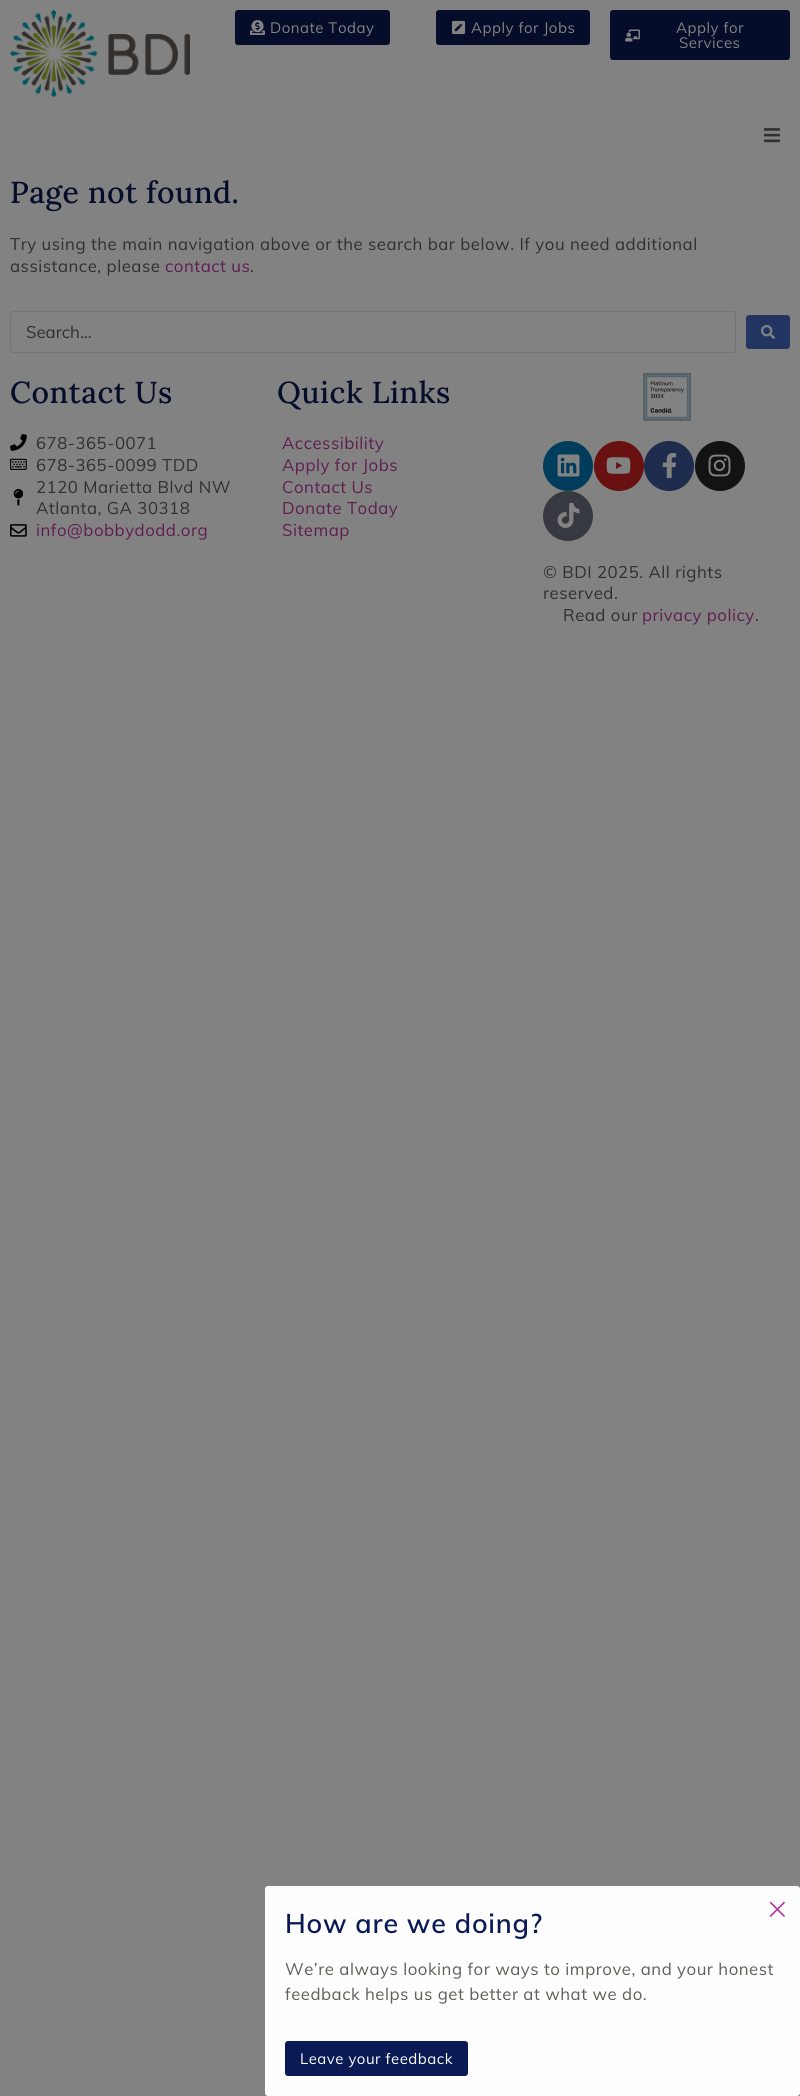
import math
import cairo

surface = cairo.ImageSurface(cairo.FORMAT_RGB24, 800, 2096)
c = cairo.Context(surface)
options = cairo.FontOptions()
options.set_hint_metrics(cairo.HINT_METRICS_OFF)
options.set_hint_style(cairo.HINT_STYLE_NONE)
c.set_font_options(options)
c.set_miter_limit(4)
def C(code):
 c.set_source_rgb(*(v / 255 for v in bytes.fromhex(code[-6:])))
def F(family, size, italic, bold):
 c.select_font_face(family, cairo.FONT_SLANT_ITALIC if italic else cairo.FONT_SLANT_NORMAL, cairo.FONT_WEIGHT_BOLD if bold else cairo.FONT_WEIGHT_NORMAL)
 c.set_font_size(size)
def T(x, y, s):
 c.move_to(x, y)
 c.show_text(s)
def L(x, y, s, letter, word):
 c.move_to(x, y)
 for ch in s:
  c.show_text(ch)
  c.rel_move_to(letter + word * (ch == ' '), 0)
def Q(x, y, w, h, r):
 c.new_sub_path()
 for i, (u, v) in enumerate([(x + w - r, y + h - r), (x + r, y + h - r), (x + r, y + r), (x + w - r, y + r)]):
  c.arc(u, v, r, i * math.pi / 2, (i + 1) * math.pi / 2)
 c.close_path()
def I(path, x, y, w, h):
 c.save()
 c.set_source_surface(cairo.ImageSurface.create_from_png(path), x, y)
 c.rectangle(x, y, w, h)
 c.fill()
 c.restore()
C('828282')
c.paint()
I('1.png',10,10,180,87)
C('050d2a')
Q(235,10,155,35,3)
c.fill()
I('2.png',250,20,15,15)
F('Muli',15,0,0)
C('828282')
L(270,33,'Donate Today',.5,0)
C('050d2a')
Q(436,10,154,35,3)
c.fill()
I('3.png',451,20,15,15)
C('828282')
L(471,33,'Apply for Jobs',.5,0)
C('050d2a')
Q(610,10,180,50,3)
c.fill()
I('4.png',625,29,15,13)
C('828282')
L(676,33,'Apply for',.5,0)
L(679,48,'Services',.5,0)
I('5.png',764,128,16,15)
F('Lora Medium',30.25,0,0)
C('050d2a')
L(10,203,'Page not found.',.5,0)
F('Muli',16.8,0,0)
C('312f2d')
L(10,250,'Try using the main navigation above or the search bar below. If you need additional',.5,0)
L(10,272,'assistance, please',.5,0)
C('5f1d4f')
L(165,272,'contact us',.5,0)
C('312f2d')
L(250,272,'.',.5,0)
Q(10.5,311.5,725,41,2.5)
C('737578')
c.set_line_width(1)
c.stroke()
C('312f2d')
T(26,338,'Search...')
C('223562')
Q(746,315,44,34,3)
c.fill()
I('6.png',761,325,14,14)
F('Lora Medium',30.25,0,0)
C('050d2a')
L(10,403,'Contact Us',.5,0)
I('7.png',10,434,17,17)
F('Muli',16.8,0,0)
C('312f2d')
L(36,449,'678-365-0071',.5,0)
I('8.png',10,458,17,12)
L(36,471,'678-365-0099 TDD',.5,0)
I('9.png',13,489,11,17)
L(36,493,'2120 Marietta Blvd NW',.5,0)
L(36,514,'Atlanta, GA 30318',.5,0)
I('10.png',10,524,17,13)
C('5f1d4f')
L(36,536,'info@bobbydodd.org',.5,0)
F('Lora Medium',30.25,0,0)
C('050d2a')
L(277,403,'Quick Links',.5,0)
F('Muli',16.8,0,0)
C('5f1d4f')
L(282,449,'Accessibility',.5,0)
L(282,471,'Apply for Jobs',.5,0)
L(282,493,'Contact Us',.5,0)
L(282,514,'Donate Today',.5,0)
L(282,536,'Sitemap',.5,0)
I('11.png',643,373,48,48)
C('003d5c')
c.arc(568,466,25,0,2 * math.pi)
c.fill()
I('12.png',557,454,23,23)
C('691010')
c.arc(619,466,25,0,2 * math.pi)
c.fill()
I('13.png',606,457,25,17)
C('1e2d4e')
c.arc(669,466,25,0,2 * math.pi)
c.fill()
I('14.png',662,453,15,25)
C('131313')
c.arc(720,466,25,0,2 * math.pi)
c.fill()
I('15.png',708,454,23,23)
C('363a40')
c.arc(568,516,25,0,2 * math.pi)
c.fill()
I('16.png',557,503,23,25)
C('312f2d')
L(543,578,'© BDI 2025. All rights',.5,0)
L(543,599,'reserved.',.5,0)
L(563,621,'Read our',.5,0)
C('5f1d4f')
L(642,621,'privacy policy',.5,0)
C('312f2d')
L(755,621,'.',.5,0)
C('fefefe')
Q(265,1886,535,210,3)
c.fill()
I('17.png',769,1901,16,16)
F('Muli SemiBold',26.9,0,0)
C('0a1a54')
L(285,1933,'How are we doing?',.8,0)
F('Muli',16.8,0,0)
C('615d59')
L(285,1975,'We’re always looking for ways to improve, and your honest',.5,0)
L(285,2000,'feedback helps us get better at what we do.',.5,0)
C('0a1a54')
Q(285,2041,183,35,3)
c.fill()
F('Muli',15,0,0)
C('fefefe')
L(300,2064,'Leave your feedback',.5,0)
surface.write_to_png('o.png')
